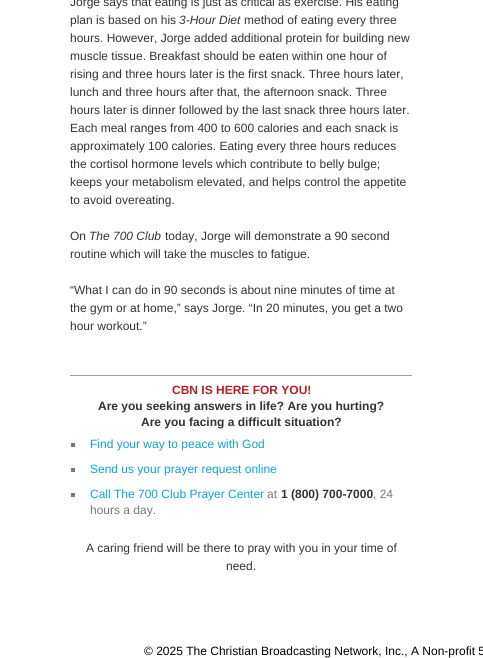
import math
import cairo

surface = cairo.ImageSurface(cairo.FORMAT_RGB24, 483, 658)
c = cairo.Context(surface)
options = cairo.FontOptions()
options.set_hint_metrics(cairo.HINT_METRICS_OFF)
options.set_hint_style(cairo.HINT_STYLE_NONE)
c.set_font_options(options)
c.set_miter_limit(4)
def C(code):
 c.set_source_rgb(*(v / 255 for v in bytes.fromhex(code[-6:])))
def F(family, size, italic, bold):
 c.select_font_face(family, cairo.FONT_SLANT_ITALIC if italic else cairo.FONT_SLANT_NORMAL, cairo.FONT_WEIGHT_BOLD if bold else cairo.FONT_WEIGHT_NORMAL)
 c.set_font_size(size)
def T(x, y, s):
 c.move_to(x, y)
 c.show_text(s)
def R(x, y, w, h):
 c.rectangle(x, y, w, h)
 c.fill()
C('ffffff')
c.paint()
F('Liberation Sans',12,0,0)
C('333333')
T(70,6,'Jorge says that eating is just as critical as exercise. His eating')
T(70,24,'plan is based on his')
F('Liberation Sans',12,1,0)
T(179,24,'3-Hour Diet')
F('Liberation Sans',12,0,0)
T(244,24,'method of eating every three')
T(70,42,'hours. However, Jorge added additional protein for building new')
T(70,60,'muscle tissue. Breakfast should be eaten within one hour of')
T(70,78,'rising and three hours later is the first snack. Three hours later,')
T(70,96,'lunch and three hours after that, the afternoon snack. Three')
T(70,114,'hours later is dinner followed by the last snack three hours later.')
T(70,132,'Each meal ranges from 400 to 600 calories and each snack is')
T(70,150,'approximately 100 calories. Eating every three hours reduces')
T(70,168,'the cortisol hormone levels which contribute to belly bulge;')
T(70,186,'keeps your metabolism elevated, and helps control the appetite')
T(70,204,'to avoid overeating.')
T(70,240,'On')
F('Liberation Sans',12,1,0)
T(89,240,'The 700 Club')
F('Liberation Sans',12,0,0)
T(165,240,'today, Jorge will demonstrate a 90 second')
T(70,258,'routine which will take the muscles to fatigue.')
T(70,294,'“What I can do in 90 seconds is about nine minutes of time at')
T(70,312,'the gym or at home,” says Jorge. “In 20 minutes, you get a two')
T(70,330,'hour workout.”')
C('9f9f9f')
R(70,375,343,1)
C('eeeeee')
R(412,375,1,1)
F('Liberation Sans',12,0,1)
C('b52025')
T(172,394,'CBN IS HERE FOR YOU!')
C('333333')
T(98,410,'Are you seeking answers in life? Are you hurting?')
T(141,426,'Are you facing a difficult situation?')
C('777777')
R(71,443,4,4)
F('Liberation Sans',12,0,0)
C('0ca3d4')
T(90,448,'Find your way to peace with God')
C('777777')
R(71,468,4,4)
C('0ca3d4')
T(90,473,'Send us your prayer request online')
C('777777')
R(71,493,4,4)
C('0ca3d4')
T(90,498,'Call The 700 Club Prayer Center')
C('777777')
T(267,498,'at')
F('Liberation Sans',12,0,1)
C('333333')
T(281,498,'1 (800) 700-7000')
F('Liberation Sans',12,0,0)
C('777777')
T(373,498,', 24')
T(90,514,'hours a day.')
C('333333')
T(86,552,'A caring friend will be there to pray with you in your time of')
T(226,570,'need.')
C('000000')
T(144,655,'© 2025 The Christian Broadcasting Network, Inc., A Non-profit 5')
surface.write_to_png('o.png')
